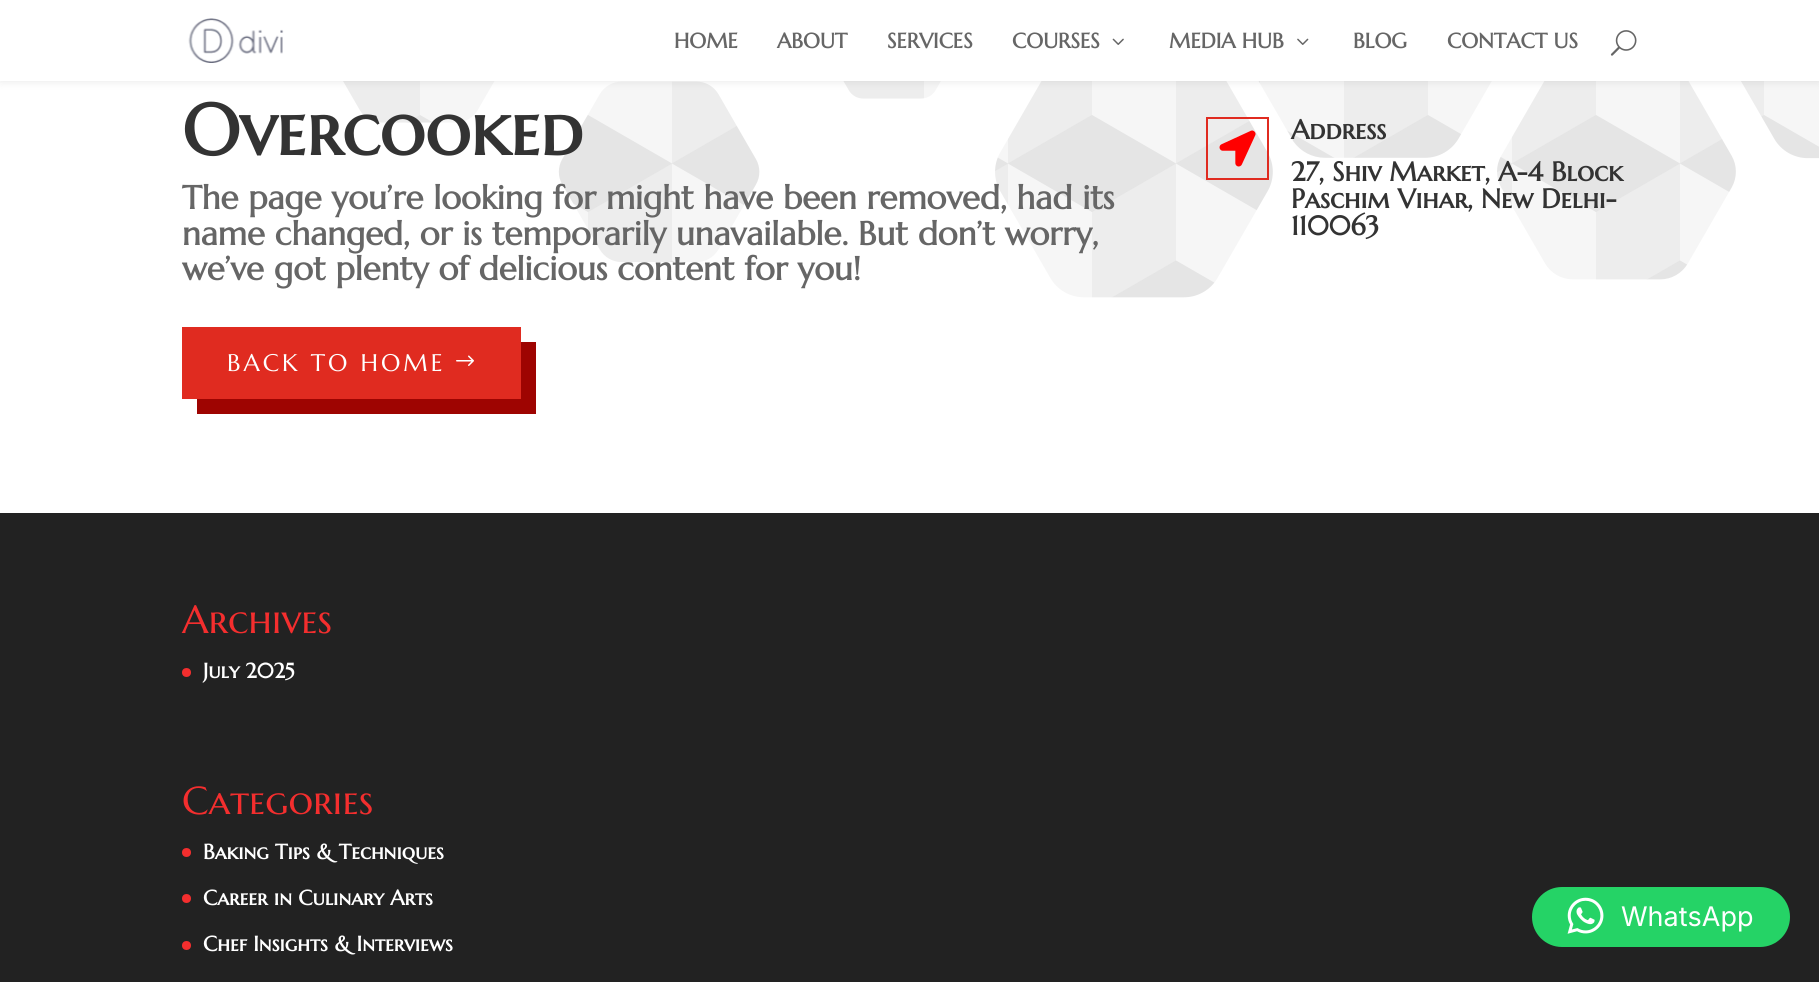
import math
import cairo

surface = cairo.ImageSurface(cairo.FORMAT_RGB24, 1819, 982)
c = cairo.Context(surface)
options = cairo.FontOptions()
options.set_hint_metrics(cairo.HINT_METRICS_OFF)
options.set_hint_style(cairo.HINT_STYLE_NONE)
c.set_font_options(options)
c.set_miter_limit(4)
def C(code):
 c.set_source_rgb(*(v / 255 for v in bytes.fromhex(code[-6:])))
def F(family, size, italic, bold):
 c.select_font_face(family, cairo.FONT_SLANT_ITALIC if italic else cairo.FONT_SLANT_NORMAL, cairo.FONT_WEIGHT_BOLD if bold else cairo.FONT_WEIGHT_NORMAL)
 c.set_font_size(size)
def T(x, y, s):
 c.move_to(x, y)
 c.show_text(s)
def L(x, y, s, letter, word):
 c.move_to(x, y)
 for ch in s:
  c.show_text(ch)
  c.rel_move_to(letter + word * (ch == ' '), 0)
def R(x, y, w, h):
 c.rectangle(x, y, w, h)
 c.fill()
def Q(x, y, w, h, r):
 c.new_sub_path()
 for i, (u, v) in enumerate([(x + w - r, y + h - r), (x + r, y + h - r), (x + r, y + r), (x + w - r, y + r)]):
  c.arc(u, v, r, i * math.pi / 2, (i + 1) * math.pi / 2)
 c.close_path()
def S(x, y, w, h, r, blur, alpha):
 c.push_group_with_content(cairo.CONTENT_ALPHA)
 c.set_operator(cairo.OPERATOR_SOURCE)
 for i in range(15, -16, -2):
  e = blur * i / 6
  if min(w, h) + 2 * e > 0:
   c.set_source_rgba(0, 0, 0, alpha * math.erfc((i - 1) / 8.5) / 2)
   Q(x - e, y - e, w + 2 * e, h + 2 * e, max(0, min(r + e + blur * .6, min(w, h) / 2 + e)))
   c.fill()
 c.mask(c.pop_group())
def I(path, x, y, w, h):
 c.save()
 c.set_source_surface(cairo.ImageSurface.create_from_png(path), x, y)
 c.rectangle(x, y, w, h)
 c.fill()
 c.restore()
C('222222')
c.paint()
C('f6f6f6')
R(343,81,1476,217)
I('6.png',343,81,1476,217)
I('5.png',0,81,1819,432)
C('000000')
S(0,0,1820,81,0,5,.1)
C('ffffff')
R(0,0,1819,81)
I('1.png',188,18,96,45)
F('Marcellus SC',21,0,1)
C('666666')
T(674,48,'HOME')
T(777,48,'ABOUT')
T(887,48,'SERVICES')
T(1012,48,'COURSES')
I('2.png',1112,38,12,7)
T(1169,48,'MEDIA HUB')
I('3.png',1297,38,12,7)
T(1353,48,'BLOG')
T(1447,48,'CONTACT US')
I('4.png',1610,30,27,26)
F('Marcellus SC',72,0,1)
C('333333')
T(182,155,'Overcooked')
F('Marcellus',33,0,1)
C('666666')
T(182,209,'The page you’re looking for might have been removed, had its')
T(182,245,'name changed, or is temporarily unavailable. But don’t worry,')
T(182,280,'we’ve got plenty of delicious content for you!')
C('9e0401')
c.new_path()
c.move_to(197,399)
c.line_to(197,414)
c.line_to(536,414)
c.line_to(536,342)
c.line_to(520,342)
c.line_to(520,399)
c.close_path()
c.fill()
C('e02b20')
R(182,327,339,72)
F('Marcellus SC',24,0,0)
C('ffffff')
L(227,371,'BACK TO HOME',3,0)
I('7.png',456,355,18,11)
c.rectangle(1207,118,61,61)
C('e02b20')
c.stroke()
I('8.png',1219,130,37,37)
F('Marcellus SC',27,0,1)
C('333333')
T(1291,139,'Address')
T(1291,181,'27, Shiv Market, A-4 Block')
T(1291,208,'Paschim Vihar, New Delhi-')
T(1291,235,'110063')
F('Marcellus SC',39,0,0)
C('f42e2e')
T(182,633,'Archives')
c.new_path()
c.arc(186.5,672.5,4.5,0,2 * math.pi)
c.fill()
F('Marcellus SC',21,0,1)
C('ffffff')
T(203,678,'July 2025')
F('Marcellus SC',39,0,0)
C('f42e2e')
T(182,814,'Categories')
c.new_path()
c.arc(186.5,852.5,4.5,0,2 * math.pi)
c.fill()
F('Marcellus SC',21,0,1)
C('ffffff')
T(203,859,'Baking Tips & Techniques')
C('f42e2e')
c.new_path()
c.arc(186.5,898.5,4.5,0,2 * math.pi)
c.fill()
C('ffffff')
T(203,905,'Career in Culinary Arts')
C('f42e2e')
c.new_path()
c.arc(186.5,945.5,4.5,0,2 * math.pi)
c.fill()
C('ffffff')
T(203,951,'Chef Insights & Interviews')
C('25d366')
Q(1532,887,258,60,30)
c.fill()
I('9.png',1567,897,37,37)
F('Inter',27,0,0)
C('ffffff')
T(1621,926,'WhatsApp')
surface.write_to_png('o.png')
